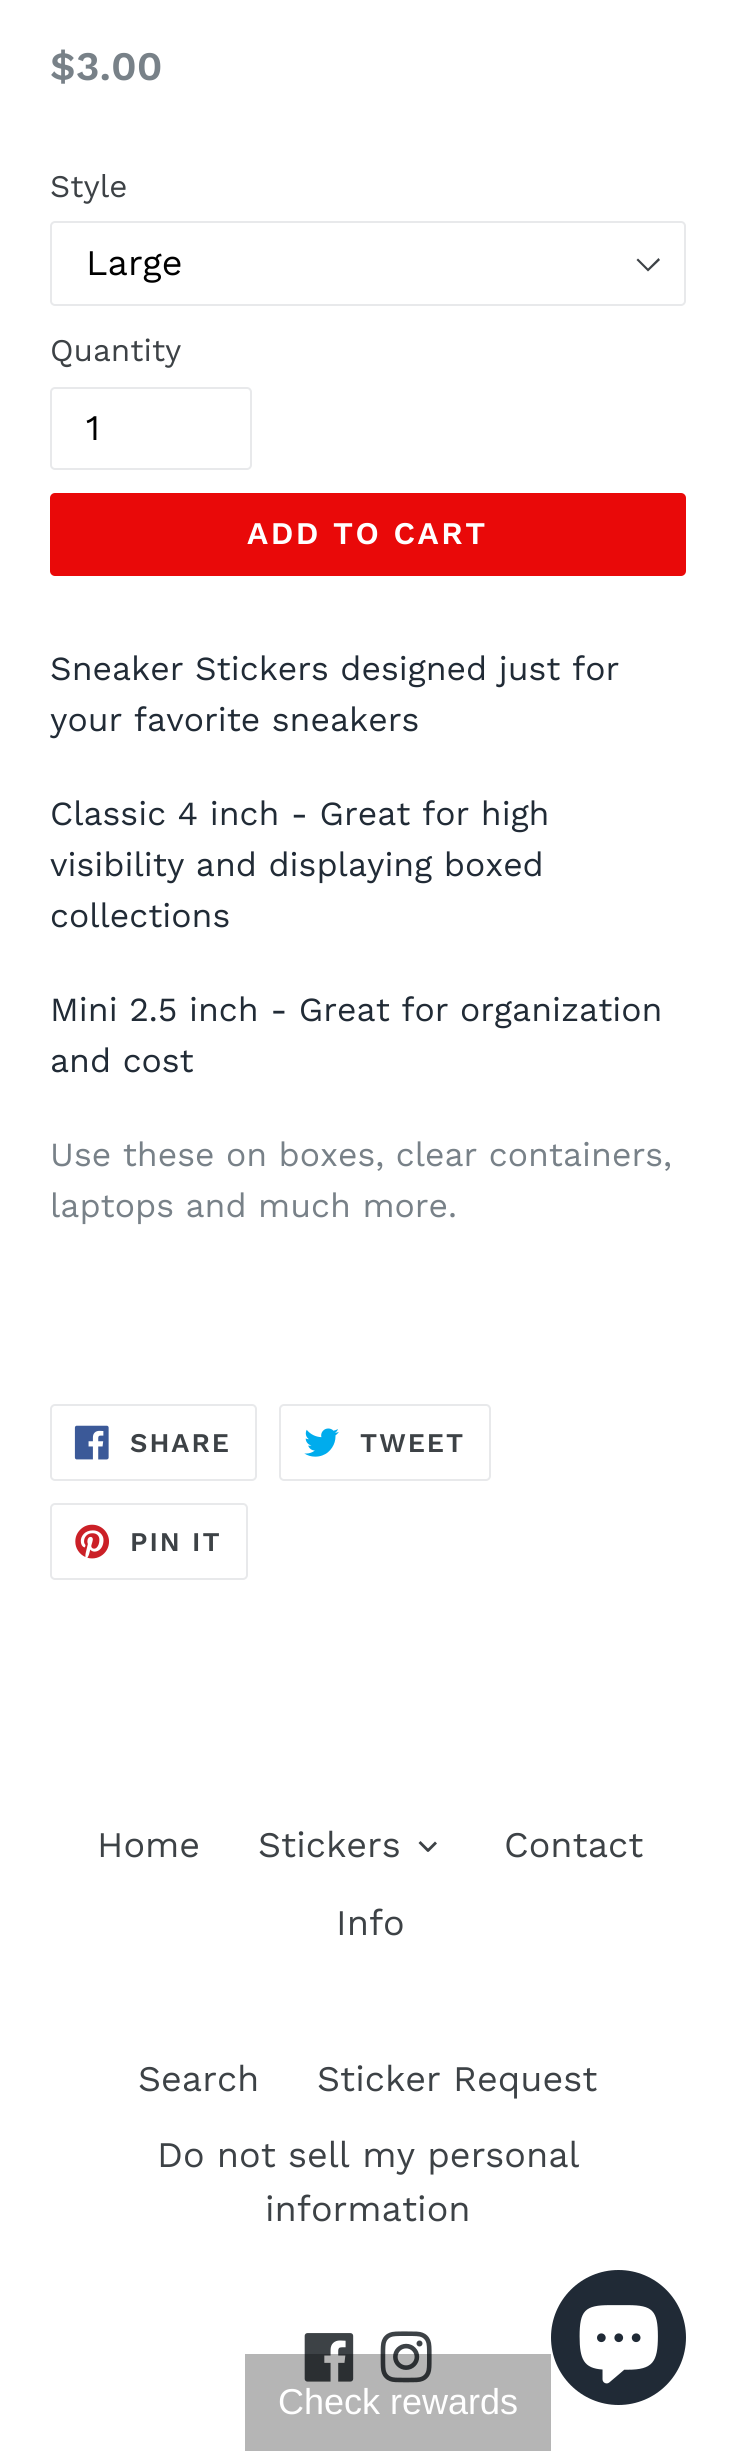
import math
import cairo

surface = cairo.ImageSurface(cairo.FORMAT_RGB24, 735, 2451)
c = cairo.Context(surface)
options = cairo.FontOptions()
options.set_hint_metrics(cairo.HINT_METRICS_OFF)
options.set_hint_style(cairo.HINT_STYLE_NONE)
c.set_font_options(options)
c.set_miter_limit(4)
def C(code):
 c.set_source_rgb(*(v / 255 for v in bytes.fromhex(code[-6:])))
def F(family, size, italic, bold):
 c.select_font_face(family, cairo.FONT_SLANT_ITALIC if italic else cairo.FONT_SLANT_NORMAL, cairo.FONT_WEIGHT_BOLD if bold else cairo.FONT_WEIGHT_NORMAL)
 c.set_font_size(size)
def T(x, y, s):
 c.move_to(x, y)
 c.show_text(s)
def L(x, y, s, letter, word):
 c.move_to(x, y)
 for ch in s:
  c.show_text(ch)
  c.rel_move_to(letter + word * (ch == ' '), 0)
def R(x, y, w, h):
 c.rectangle(x, y, w, h)
 c.fill()
def Q(x, y, w, h, r):
 c.new_sub_path()
 for i, (u, v) in enumerate([(x + w - r, y + h - r), (x + r, y + h - r), (x + r, y + r), (x + w - r, y + r)]):
  c.arc(u, v, r, i * math.pi / 2, (i + 1) * math.pi / 2)
 c.close_path()
def I(path, x, y, w, h):
 c.save()
 c.set_source_surface(cairo.ImageSurface.create_from_png(path), x, y)
 c.rectangle(x, y, w, h)
 c.fill()
 c.restore()
C('ffffff')
c.paint()
F('Work Sans SemiBold',40.5,0,0)
C('788188')
T(50,80,'$3.00')
F('Work Sans',31.5,0,0)
C('3d4246')
T(50,197,'Style')
c.new_path()
c.move_to(648,271.5)
c.line_to(636.5,260)
c.line_to(638,258.5)
c.line_to(648,268.5)
c.line_to(658.5,258)
c.line_to(660,260)
c.close_path()
c.fill()
Q(51,222,634,83,4)
C('e8e9eb')
c.stroke()
F('Work Sans',36,0,0)
C('000000')
T(86,275,'Large')
F('Work Sans',31.5,0,0)
C('3d4246')
T(50,361,'Quantity')
Q(51,388,200,81,4)
C('e8e9eb')
c.stroke()
F('Work Sans',36,0,0)
C('000000')
T(86,440,'1')
C('e90909')
Q(50,493,636,83,5)
c.fill()
F('Work Sans SemiBold',31.5,0,0)
C('ffffff')
L(247,544,'ADD TO CART',2.5,0)
F('Work Sans',33.75,0,0)
C('212b36')
T(50,680,'Sneaker Stickers designed just for')
T(50,731,'your favorite sneakers')
T(50,825,'Classic 4 inch - Great for high')
T(50,876,'visibility and displaying boxed')
T(50,927,'collections')
T(50,1021,'Mini 2.5 inch - Great for organization')
T(50,1072,'and cost')
C('788188')
T(50,1166,'Use these on boxes, clear containers,')
T(50,1217,'laptops and much more.')
Q(51,1405,205,75,4)
C('e8e9eb')
c.stroke()
I('1.png',74,1425,35,35)
F('Work Sans SemiBold',27,0,0)
C('3d4246')
L(130,1452,'SHARE',2,0)
Q(280,1405,210,75,4)
C('e8e9eb')
c.stroke()
I('2.png',304,1428,35,29)
C('3d4246')
L(360,1452,'TWEET',2,0)
Q(51,1504,196,75,4)
C('e8e9eb')
c.stroke()
I('3.png',75,1524,34,35)
C('3d4246')
L(130,1551,'PIN IT',2,0)
F('Work Sans',36,0,0)
T(97,1857,'Home')
T(258,1857,'Stickers')
c.new_path()
c.move_to(435,1841.5)
c.line_to(437,1843.5)
c.line_to(428.5,1852)
c.line_to(426.5,1850)
c.close_path()
c.fill()
c.new_path()
c.move_to(420.5,1841)
c.line_to(429.5,1850)
c.line_to(427.5,1852)
c.line_to(418.5,1843)
c.close_path()
c.fill()
T(504,1857,'Contact')
T(336,1935,'Info')
T(138,2091,'Search')
T(317,2091,'Sticker Request')
T(157,2167,'Do not sell my personal')
T(265,2221,'information')
I('4.png',304,2333,50,49)
I('5.png',380,2331,52,52)
c.set_source_rgba(0,0,0,0.29)
R(245,2354,306,97)
F('Liberation Sans',36,0,0)
C('ffffff')
T(278,2414,'Check rewards')
C('202a36')
c.new_path()
c.arc(618.5,2337.5,67.5,0,2 * math.pi)
c.fill()
I('6.png',579,2305,79,79)
surface.write_to_png('o.png')
